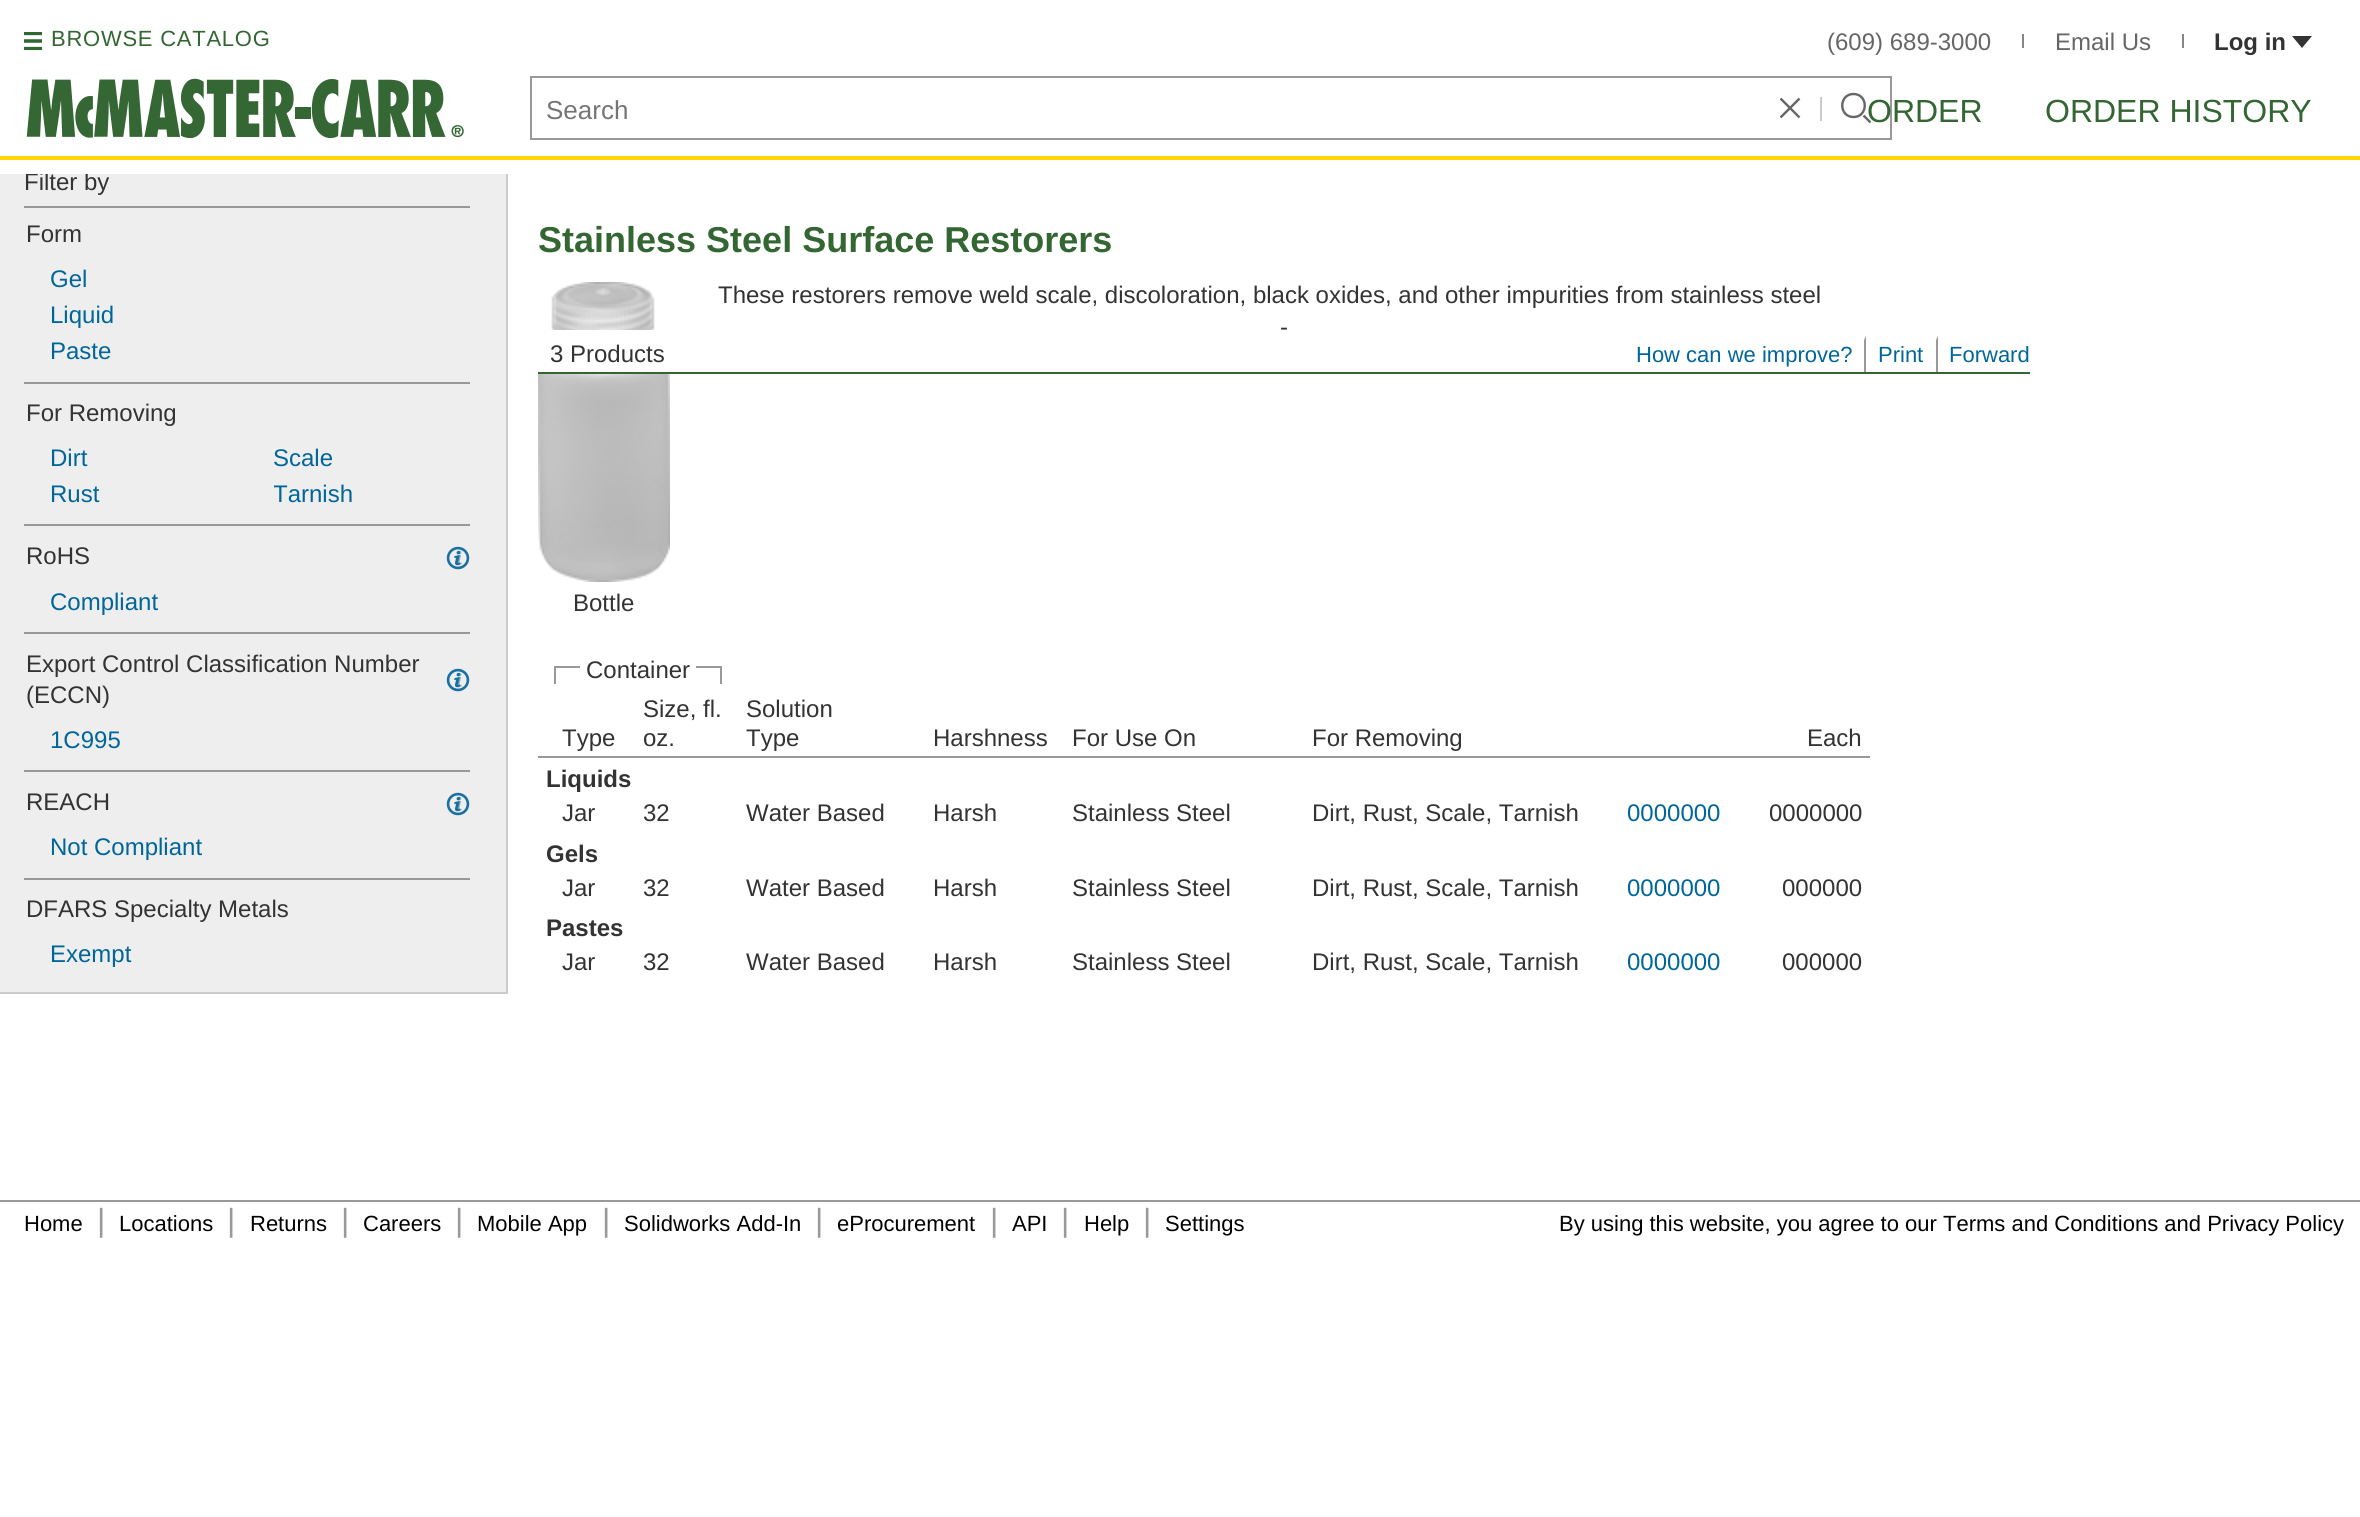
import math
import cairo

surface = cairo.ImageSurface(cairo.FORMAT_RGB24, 2360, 1517)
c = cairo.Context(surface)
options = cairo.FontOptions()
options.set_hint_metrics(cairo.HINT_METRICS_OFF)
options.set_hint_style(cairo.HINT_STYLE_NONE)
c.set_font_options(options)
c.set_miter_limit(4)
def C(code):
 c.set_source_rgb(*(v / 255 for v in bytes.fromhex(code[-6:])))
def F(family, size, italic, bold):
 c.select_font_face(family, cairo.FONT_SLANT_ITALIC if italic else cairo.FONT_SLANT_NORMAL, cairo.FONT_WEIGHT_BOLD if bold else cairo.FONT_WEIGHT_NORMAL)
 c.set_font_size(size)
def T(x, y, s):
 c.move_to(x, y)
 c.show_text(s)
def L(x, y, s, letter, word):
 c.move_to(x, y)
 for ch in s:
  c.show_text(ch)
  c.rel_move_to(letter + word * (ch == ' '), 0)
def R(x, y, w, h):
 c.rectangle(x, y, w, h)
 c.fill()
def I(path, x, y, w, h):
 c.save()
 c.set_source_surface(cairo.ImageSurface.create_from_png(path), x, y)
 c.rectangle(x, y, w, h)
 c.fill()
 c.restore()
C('ffffff')
c.paint()
C('eeeeee')
R(0,174,506,818)
F('Liberation Sans',24,0,0)
C('333333')
T(24,190,'Filter by')
C('ffffff')
R(25,172,63,2)
C('fed700')
R(0,156,2360,4)
I('1.png',24,32,18,18)
F('Liberation Sans',22,0,0)
C('336633')
L(51,46,'BROWSE CATALOG',.75,0)
F('Liberation Sans',24,0,0)
C('666666')
T(1827,50,'(609) 689-3000')
C('878787')
R(2022,34,2,14)
C('666666')
T(2055,50,'Email Us')
C('878787')
R(2182,34,2,14)
F('Liberation Sans',24,0,1)
C('333333')
T(2214,50,'Log in')
c.new_path()
c.move_to(2292,36)
c.line_to(2302,48)
c.line_to(2312,36)
c.close_path()
c.fill()
I('2.png',26,78,438,61)
c.rectangle(531,77,1360,62)
C('999999')
c.stroke()
F('Liberation Sans',26,0,0)
C('757575')
T(546,119,'Search')
c.new_path()
c.move_to(1780.5,98.5)
c.line_to(1799.5,117.5)
c.move_to(1799.5,98.5)
c.line_to(1780.5,117.5)
C('666666')
c.set_line_width(2.4)
c.stroke()
C('cbcbcb')
R(1820,97,2,24)
c.new_path()
c.move_to(1863.5,115.5)
c.line_to(1870.5,122.5)
c.move_to(1853.5,117)
c.curve_to(1868.5,117,1868.5,94,1853.5,94)
c.curve_to(1838.5,94,1838.5,117,1853.5,117)
c.close_path()
C('666666')
c.stroke()
F('Liberation Sans',32,0,0)
C('336633')
T(1867,122,'ORDER')
T(2045,122,'ORDER HISTORY')
C('cccccc')
R(506,174,2,820)
R(0,992,508,2)
C('999999')
R(24,206,446,2)
F('Liberation Sans',24,0,0)
C('333333')
T(26,242,'Form')
C('006699')
T(50,287,'Gel')
T(50,323,'Liquid')
T(50,359,'Paste')
C('999999')
R(24,382,446,2)
C('333333')
T(26,421,'For Removing')
C('006699')
T(50,466,'Dirt')
T(50,502,'Rust')
T(273,466,'Scale')
c.save()
c.rectangle(274,480,198,28)
c.clip()
T(273,502,'Tarnish')
c.restore()
C('999999')
R(24,524,446,2)
C('333333')
T(26,564,'RoHS')
I('3.png',446,546,24,24)
C('006699')
T(50,610,'Compliant')
C('999999')
R(24,632,446,2)
C('333333')
T(26,672,'Export Control Classification Number')
T(26,703,'(ECCN)')
I('3.png',446,668,24,24)
C('006699')
T(50,748,'1C995')
C('999999')
R(24,770,446,2)
C('333333')
T(26,810,'REACH')
I('3.png',446,792,24,24)
C('006699')
T(50,855,'Not Compliant')
C('999999')
R(24,878,446,2)
C('333333')
T(26,917,'DFARS Specialty Metals')
C('006699')
T(50,962,'Exempt')
F('Liberation Sans',36,0,1)
C('336633')
T(538,252,'Stainless Steel Surface Restorers')
F('Liberation Sans',24,0,0)
C('333333')
T(718,303,'These restorers remove weld scale, discoloration, black oxides, and other impurities from stainless steel')
T(1280,335,'-')
I('4.png',538,282,132,300)
T(573,611,'Bottle')
C('999999')
R(554,666,168,2)
C('ffffff')
R(580,666,116,2)
C('333333')
T(586,678,'Container')
C('999999')
R(720,666,2,18)
R(554,666,2,18)
C('333333')
T(562,746,'Type')
T(643,717,'Size, fl.')
T(643,746,'oz.')
T(746,717,'Solution')
T(746,746,'Type')
T(933,746,'Harshness')
T(1072,746,'For Use On')
T(1312,746,'For Removing')
T(1807,746,'Each')
C('999999')
R(538,756,1332,2)
F('Liberation Sans',24,0,1)
C('333333')
T(546,787,'Liquids')
F('Liberation Sans',24,0,0)
T(562,821,'Jar')
T(643,821,'32')
T(746,821,'Water Based')
T(933,821,'Harsh')
T(1072,821,'Stainless Steel')
T(1312,821,'Dirt, Rust, Scale, Tarnish')
C('006699')
T(1627,821,'0000000')
C('333333')
T(1769,821,'0000000')
F('Liberation Sans',24,0,1)
T(546,862,'Gels')
F('Liberation Sans',24,0,0)
T(562,896,'Jar')
T(643,896,'32')
T(746,896,'Water Based')
T(933,896,'Harsh')
T(1072,896,'Stainless Steel')
T(1312,896,'Dirt, Rust, Scale, Tarnish')
C('006699')
T(1627,896,'0000000')
C('333333')
T(1782,896,'000000')
F('Liberation Sans',24,0,1)
T(546,936,'Pastes')
F('Liberation Sans',24,0,0)
T(562,970,'Jar')
T(643,970,'32')
T(746,970,'Water Based')
T(933,970,'Harsh')
T(1072,970,'Stainless Steel')
T(1312,970,'Dirt, Rust, Scale, Tarnish')
C('006699')
T(1627,970,'0000000')
C('333333')
T(1782,970,'000000')
C('336633')
R(538,372,1492,2)
C('ffffff')
R(538,330,132,42)
C('333333')
T(550,362,'3 Products')
C('999999')
c.new_path()
c.move_to(1866,336)
c.line_to(1866,372)
c.line_to(1864,372)
c.line_to(1864,340)
c.close_path()
c.fill()
F('Liberation Sans',22,0,0)
C('006699')
T(1636,362,'How can we improve?')
C('999999')
c.new_path()
c.move_to(1938,336)
c.line_to(1938,372)
c.line_to(1936,372)
c.line_to(1936,340)
c.close_path()
c.fill()
C('006699')
T(1878,362,'Print')
T(1949,362,'Forward')
C('999999')
R(0,1200,2360,2)
C('000000')
T(24,1231,'Home')
F('Liberation Sans',32,0,0)
C('999999')
T(97,1231,'|')
F('Liberation Sans',22,0,0)
C('000000')
T(119,1231,'Locations')
F('Liberation Sans',32,0,0)
C('999999')
T(227,1231,'|')
F('Liberation Sans',22,0,0)
C('000000')
T(250,1231,'Returns')
F('Liberation Sans',32,0,0)
C('999999')
T(341,1231,'|')
F('Liberation Sans',22,0,0)
C('000000')
T(363,1231,'Careers')
F('Liberation Sans',32,0,0)
C('999999')
T(455,1231,'|')
F('Liberation Sans',22,0,0)
C('000000')
T(477,1231,'Mobile App')
F('Liberation Sans',32,0,0)
C('999999')
T(602,1231,'|')
F('Liberation Sans',22,0,0)
C('000000')
T(624,1231,'Solidworks Add-In')
F('Liberation Sans',32,0,0)
C('999999')
T(815,1231,'|')
F('Liberation Sans',22,0,0)
C('000000')
T(837,1231,'eProcurement')
F('Liberation Sans',32,0,0)
C('999999')
T(990,1231,'|')
F('Liberation Sans',22,0,0)
C('000000')
T(1012,1231,'API')
F('Liberation Sans',32,0,0)
C('999999')
T(1061,1231,'|')
F('Liberation Sans',22,0,0)
C('000000')
T(1084,1231,'Help')
F('Liberation Sans',32,0,0)
C('999999')
T(1143,1231,'|')
F('Liberation Sans',22,0,0)
C('000000')
T(1165,1231,'Settings')
T(1559,1231,'By using this website, you agree to our Terms and Conditions and Privacy Policy')
surface.write_to_png('o.png')
